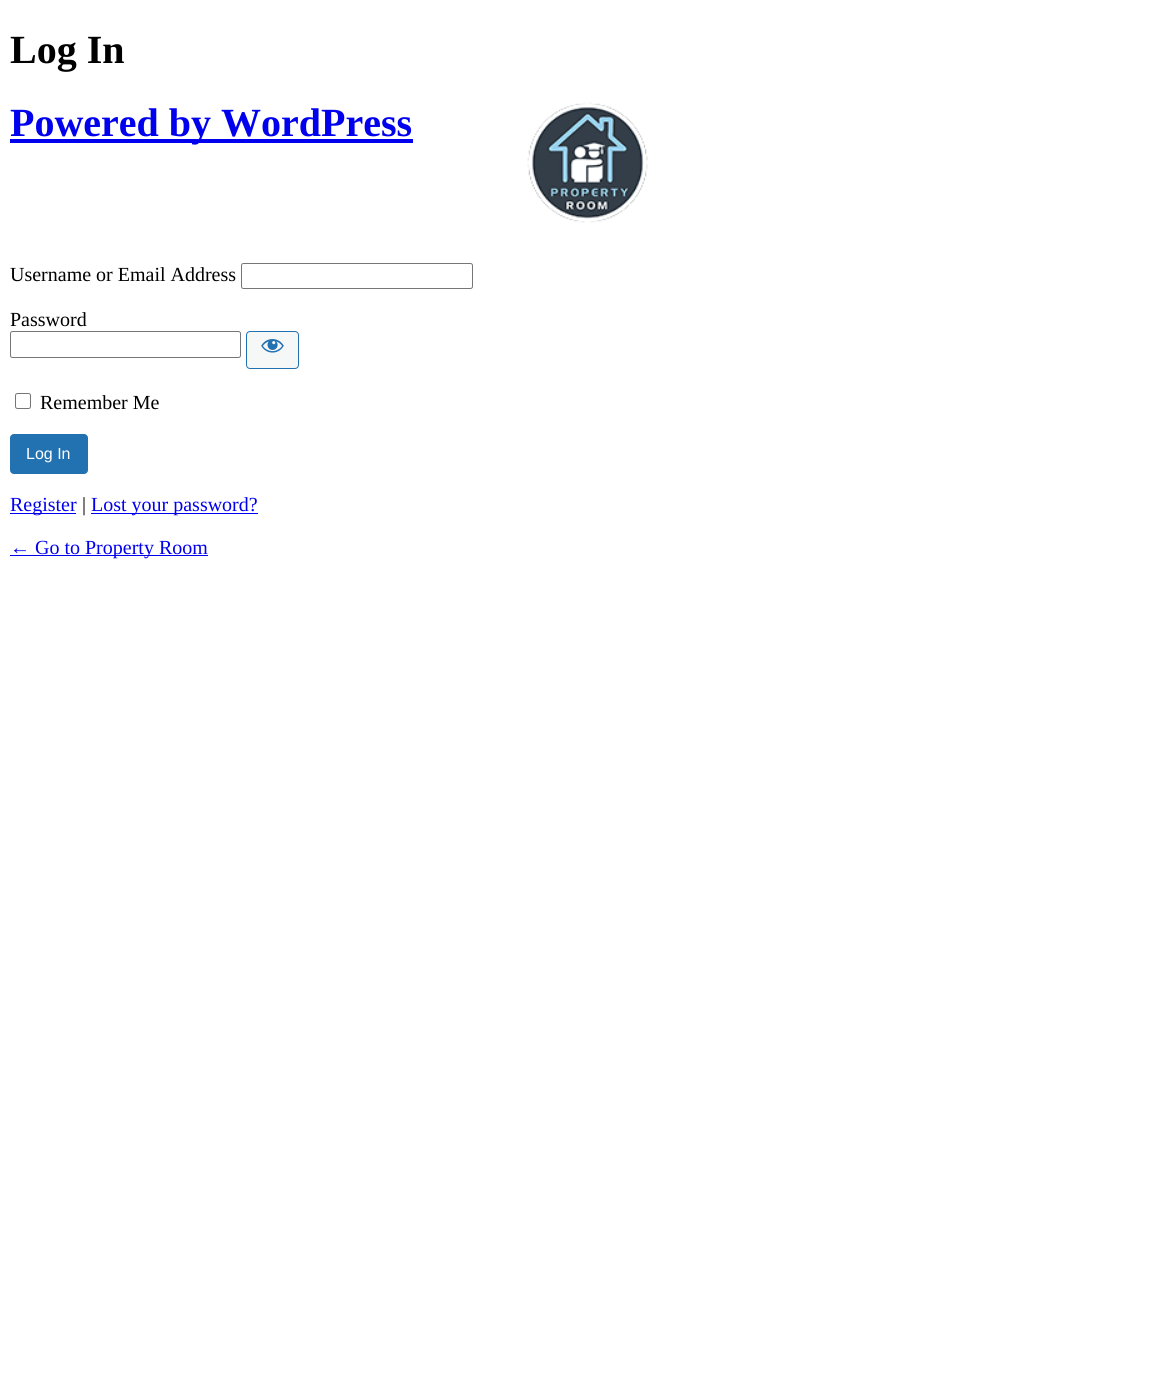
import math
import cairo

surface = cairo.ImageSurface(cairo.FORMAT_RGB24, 1173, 1377)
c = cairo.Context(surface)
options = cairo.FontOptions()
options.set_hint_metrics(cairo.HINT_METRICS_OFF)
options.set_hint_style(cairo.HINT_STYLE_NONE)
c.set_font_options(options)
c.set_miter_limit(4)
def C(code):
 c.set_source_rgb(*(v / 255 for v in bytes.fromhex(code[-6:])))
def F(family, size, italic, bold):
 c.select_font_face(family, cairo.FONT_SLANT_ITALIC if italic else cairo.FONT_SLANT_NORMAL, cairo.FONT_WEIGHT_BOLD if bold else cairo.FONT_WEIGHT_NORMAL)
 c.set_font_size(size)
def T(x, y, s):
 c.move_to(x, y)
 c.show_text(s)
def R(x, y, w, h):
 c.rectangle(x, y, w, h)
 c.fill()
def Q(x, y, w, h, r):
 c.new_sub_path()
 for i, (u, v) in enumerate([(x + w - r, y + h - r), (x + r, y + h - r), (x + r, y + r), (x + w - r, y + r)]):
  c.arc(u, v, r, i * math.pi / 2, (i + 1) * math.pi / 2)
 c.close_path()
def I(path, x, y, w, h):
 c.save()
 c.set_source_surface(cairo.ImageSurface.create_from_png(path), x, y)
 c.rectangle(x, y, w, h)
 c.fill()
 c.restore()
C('ffffff')
c.paint()
F('Liberation Serif',40,0,1)
C('000000')
T(10,63,'Log In')
I('1.png',527,102,121,121)
C('0000ee')
R(10,139,403,4)
T(10,136,'Powered by WordPress')
F('Liberation Serif',20,0,0)
C('000000')
T(10,281,'Username or Email Address')
Q(241.5,263.5,231,25,2)
C('767676')
c.set_line_width(1)
c.stroke()
C('000000')
T(10,326,'Password')
Q(10.5,331.5,230,26,2)
C('767676')
c.stroke()
C('f6f7f7')
Q(246.5,331.5,52,37,3.5)
c.fill_preserve()
C('2271b1')
c.stroke()
I('2.png',261,339,23,14)
Q(15.5,393.5,15,15,2)
C('767676')
c.stroke()
C('000000')
T(40,409,'Remember Me')
C('2271b1')
Q(10.5,434.5,77,39,3.5)
c.fill_preserve()
c.stroke()
F('Liberation Sans',16,0,0)
C('ffffff')
T(26,459,'Log In')
C('0000ee')
R(10,513,66,1)
F('Liberation Serif',20,0,0)
T(10,511,'Register')
C('000000')
T(82,511,'|')
C('0000ee')
R(91,513,167,1)
T(91,511,'Lost your password?')
R(10,555,198,1)
T(10,554,'← Go to Property Room')
surface.write_to_png('o.png')
